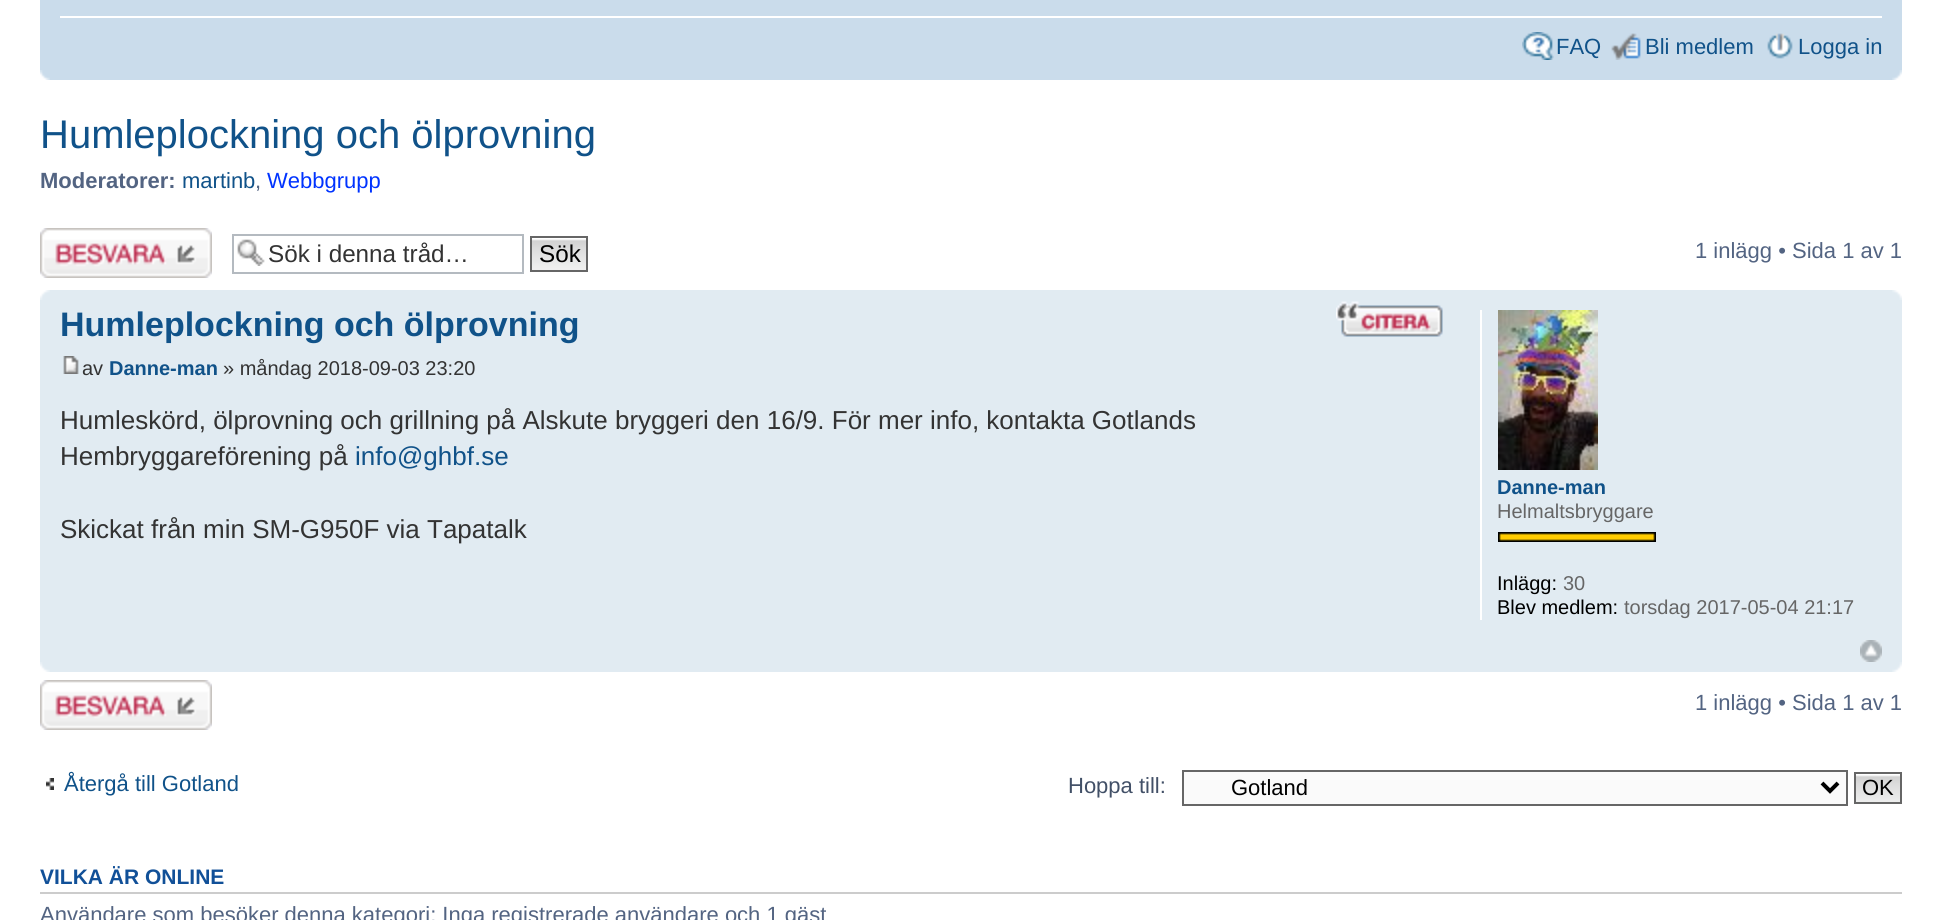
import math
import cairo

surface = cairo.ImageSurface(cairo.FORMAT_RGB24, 1942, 920)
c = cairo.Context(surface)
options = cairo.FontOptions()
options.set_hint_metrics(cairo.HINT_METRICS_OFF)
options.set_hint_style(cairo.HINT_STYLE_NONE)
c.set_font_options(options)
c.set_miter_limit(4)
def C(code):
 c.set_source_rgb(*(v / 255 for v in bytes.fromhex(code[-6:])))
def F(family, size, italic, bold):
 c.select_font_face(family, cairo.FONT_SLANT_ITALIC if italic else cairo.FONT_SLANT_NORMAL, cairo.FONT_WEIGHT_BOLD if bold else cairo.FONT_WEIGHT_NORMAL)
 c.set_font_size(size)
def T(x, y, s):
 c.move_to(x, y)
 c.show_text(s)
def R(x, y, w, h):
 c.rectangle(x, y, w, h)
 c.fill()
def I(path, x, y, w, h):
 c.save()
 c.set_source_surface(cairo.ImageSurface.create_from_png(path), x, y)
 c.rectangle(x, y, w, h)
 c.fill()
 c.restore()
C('ffffff')
c.paint()
C('cadceb')
R(40,0,1862,80)
C('ffffff')
R(60,16,1822,2)
I('1.png',1522,32,32,28)
F('Liberation Sans',22,0,0)
C('105289')
T(1556,54,'FAQ')
I('2.png',1611,33,30,27)
T(1645,54,'Bli medlem')
I('3.png',1767,33,26,26)
T(1798,54,'Logga in')
I('4.png',40,70,10,10)
I('5.png',1892,70,10,10)
F('Liberation Sans',40,0,0)
T(40,148,'Humleplockning och ölprovning')
F('Liberation Sans',22,0,1)
C('536482')
T(40,188,'Moderatorer:')
F('Liberation Sans',22,0,0)
C('105289')
T(182,188,'martinb')
C('536482')
T(255,188,',')
C('0033ff')
T(267,188,'Webbgrupp')
I('6.png',40,228,172,50)
I('7.png',237,239,28,27)
c.rectangle(233,235,290,38)
C('b4bac0')
c.stroke()
F('Liberation Sans',24.25,0,0)
C('333333')
T(268,262,'Sök i denna tråd…')
I('8.png',532,238,54,32)
c.rectangle(531,237,56,34)
C('666666')
c.stroke()
C('000000')
T(539,262,'Sök')
F('Liberation Sans',22,0,0)
C('536482')
T(1695,258,'1 inlägg • Sida 1 av 1')
C('e1ebf2')
R(40,290,1862,382)
I('9.png',40,290,10,10)
I('10.png',1892,290,10,10)
F('Liberation Sans',34,0,1)
C('105289')
T(60,336,'Humleplockning och ölprovning')
I('11.png',1336,301,107,36)
I('12.png',1336,301,107,36)
I('13.png',63,356,16,18)
F('Liberation Sans',20,0,0)
C('333333')
T(82,375,'av')
F('Liberation Sans',20,0,1)
C('105289')
T(109,375,'Danne-man')
F('Liberation Sans',20,0,0)
C('333333')
T(223,375,'» måndag 2018-09-03 23:20')
F('Liberation Sans',26,0,0)
T(60,429,'Humleskörd, ölprovning och grillning på Alskute bryggeri den 16/9. För mer info, kontakta Gotlands')
T(60,465,'Hembryggareförening på')
C('105289')
T(355,465,'info@ghbf.se')
C('333333')
T(60,538,'Skickat från min SM-G950F via Tapatalk')
C('ffffff')
R(1480,310,2,310)
I('14.png',1498,310,100,160)
F('Liberation Sans',20,0,1)
C('105289')
T(1497,494,'Danne-man')
F('Liberation Sans',20,0,0)
C('666666')
T(1497,518,'Helmaltsbryggare')
I('15.png',1498,532,158,10)
C('000000')
T(1497,590,'Inlägg:')
C('666666')
T(1563,590,'30')
C('000000')
T(1497,614,'Blev medlem:')
C('666666')
T(1624,614,'torsdag 2017-05-04 21:17')
I('16.png',1860,640,22,22)
I('17.png',40,662,10,10)
I('18.png',1892,662,10,10)
I('6.png',40,680,172,50)
F('Liberation Sans',22,0,0)
C('536482')
T(1695,710,'1 inlägg • Sida 1 av 1')
I('19.png',46,778,8,12)
C('105289')
T(64,791,'Återgå till Gotland')
C('425067')
T(1068,793,'Hoppa till:')
C('fafafa')
c.rectangle(1183,771,664,34)
c.fill_preserve()
C('666666')
c.stroke()
c.new_path()
c.move_to(1822,783)
c.line_to(1830,791)
c.line_to(1838,783)
C('000000')
c.set_line_width(4)
c.stroke()
T(1231,795,'Gotland')
I('20.png',1856,774,44,28)
c.rectangle(1855,773,46,30)
C('666666')
c.set_line_width(2)
c.stroke()
C('000000')
T(1862,795,'OK')
C('cccccc')
R(40,892,1862,2)
F('Liberation Sans',21,0,1)
C('115098')
T(40,884,'VILKA ÄR ONLINE')
F('Liberation Sans',22,0,0)
C('536482')
T(40,922,'Användare som besöker denna kategori: Inga registrerade användare och 1 gäst')
surface.write_to_png('o.png')
